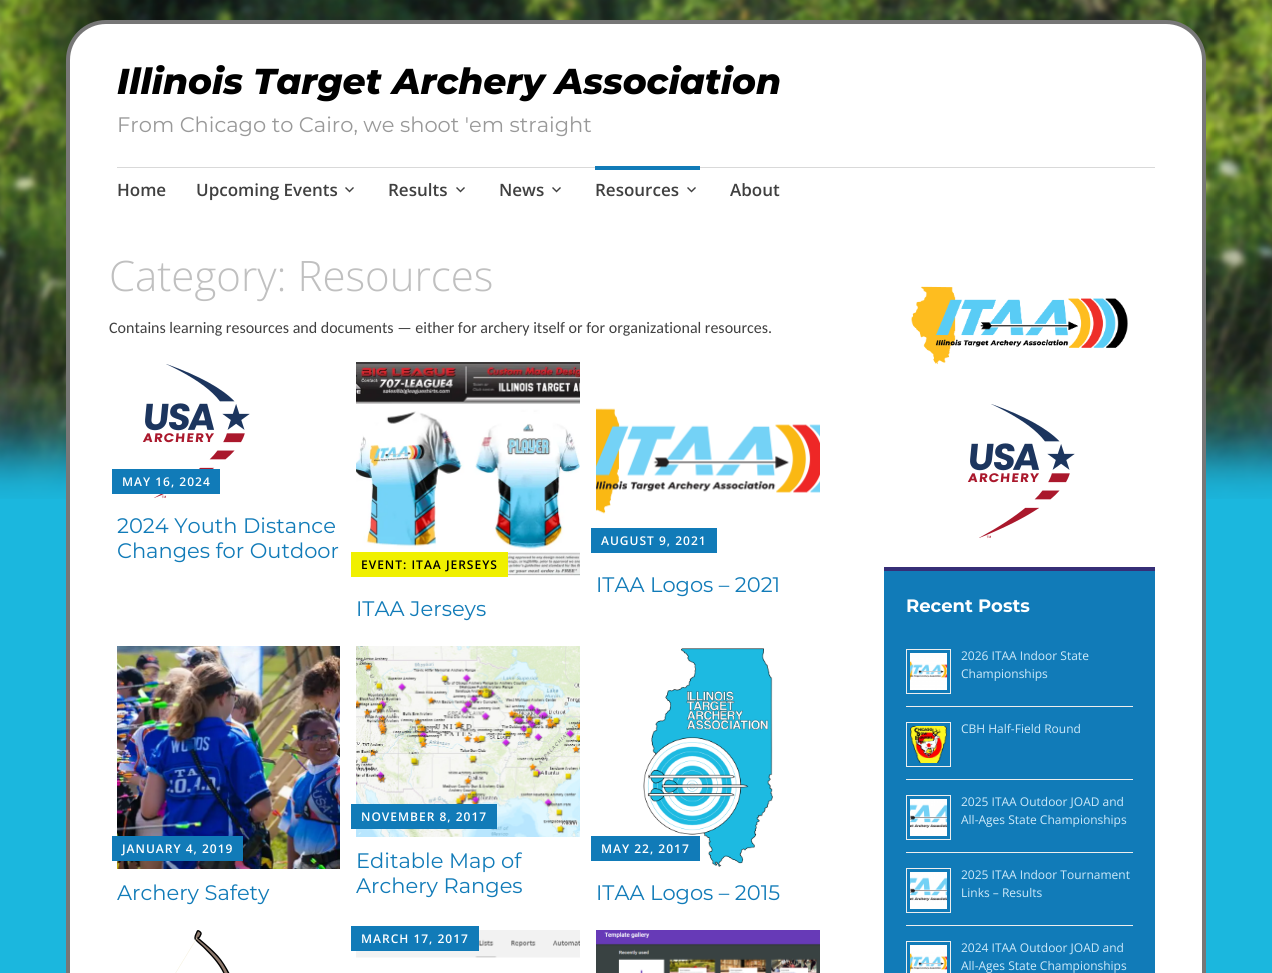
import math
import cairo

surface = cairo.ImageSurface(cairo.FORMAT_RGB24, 1272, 973)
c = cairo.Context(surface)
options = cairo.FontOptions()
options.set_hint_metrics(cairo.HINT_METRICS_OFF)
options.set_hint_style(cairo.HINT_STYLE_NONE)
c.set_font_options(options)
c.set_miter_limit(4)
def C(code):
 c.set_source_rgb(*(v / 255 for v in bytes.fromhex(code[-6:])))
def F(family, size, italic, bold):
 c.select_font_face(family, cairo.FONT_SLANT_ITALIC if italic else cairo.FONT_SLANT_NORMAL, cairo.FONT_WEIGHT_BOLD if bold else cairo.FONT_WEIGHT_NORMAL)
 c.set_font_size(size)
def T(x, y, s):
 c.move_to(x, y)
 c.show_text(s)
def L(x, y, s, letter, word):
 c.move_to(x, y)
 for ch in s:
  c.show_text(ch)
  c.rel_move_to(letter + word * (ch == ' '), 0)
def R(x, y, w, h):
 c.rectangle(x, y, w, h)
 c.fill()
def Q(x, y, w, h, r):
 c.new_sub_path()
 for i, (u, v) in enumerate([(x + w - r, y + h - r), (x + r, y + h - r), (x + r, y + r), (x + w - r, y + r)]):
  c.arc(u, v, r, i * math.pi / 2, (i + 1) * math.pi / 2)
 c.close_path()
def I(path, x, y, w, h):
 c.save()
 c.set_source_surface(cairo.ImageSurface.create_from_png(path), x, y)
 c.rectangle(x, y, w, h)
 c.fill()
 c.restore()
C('1bb7de')
c.paint()
I('1.png',0,0,1272,499)
C('ffffff')
Q(68,22,1136,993,38)
c.fill_preserve()
C('777777')
c.set_line_width(4)
c.stroke()
F('Montserrat ExtraBold',36,1,0)
C('000000')
T(117,94,'Illinois Target Archery Association')
F('Montserrat',21,1,0)
C('999999')
T(117,132,'From Chicago to Cairo, we shoot \'em straight')
C('d9d9d9')
R(117,167,1038,1)
F('Open Sans SemiBold',17,0,0)
C('404040')
T(117,196,'Home')
T(196,196,'Upcoming Events')
I('2.png',345,187,9,6)
T(388,196,'Results')
I('2.png',456,187,9,6)
T(499,196,'News')
I('2.png',552,187,9,6)
C('117bb8')
R(595,166,105,4)
C('404040')
T(595,196,'Resources')
I('2.png',687,187,9,6)
T(730,196,'About')
F('Open Sans Light',42,0,0)
C('c0c0c0')
T(109,291,'Category: Resources')
F('Carlito',16,0,0)
C('404040')
T(109,333,'Contains learning resources and documents — either for archery itself or for organizational resources.')
I('3.png',142,364,108,135)
C('117bb8')
R(112,469,108,25)
F('Open Sans SemiBold',12,0,0)
C('ffffff')
L(122,486,'MAY 16, 2024',1,0)
F('Montserrat',21,1,0)
C('117bb8')
T(117,533,'2024 Youth Distance')
T(117,558,'Changes for Outdoor')
I('4.png',356,362,224,214)
C('f0f000')
R(351,552,157,25)
F('Open Sans SemiBold',12,0,0)
C('000000')
L(361,569,'EVENT: ITAA JERSEYS',1,0)
F('Montserrat',21,1,0)
C('117bb8')
T(356,616,'ITAA Jerseys')
I('5.png',596,408,224,106)
R(591,528,126,25)
F('Open Sans SemiBold',12,0,0)
C('ffffff')
L(601,545,'AUGUST 9, 2021',1,0)
F('Montserrat',21,1,0)
C('117bb8')
T(596,592,'ITAA Logos – 2021')
I('6.png',117,646,223,223)
R(112,836,131,25)
F('Open Sans SemiBold',12,0,0)
C('ffffff')
L(122,853,'JANUARY 4, 2019',1,0)
F('Montserrat',21,1,0)
C('117bb8')
T(117,900,'Archery Safety')
I('7.png',356,646,224,191)
R(351,804,146,25)
F('Open Sans SemiBold',12,0,0)
C('ffffff')
L(361,821,'NOVEMBER 8, 2017',1,0)
F('Montserrat',21,1,0)
C('117bb8')
T(356,868,'Editable Map of')
T(356,893,'Archery Ranges')
I('8.png',643,648,130,219)
R(591,836,109,25)
F('Open Sans SemiBold',12,0,0)
C('ffffff')
L(601,853,'MAY 22, 2017',1,0)
F('Montserrat',21,1,0)
C('117bb8')
T(596,900,'ITAA Logos – 2015')
I('9.png',175,930,55,43)
I('10.png',356,930,224,28)
R(351,926,128,25)
F('Open Sans SemiBold',12,0,0)
C('ffffff')
L(361,943,'MARCH 17, 2017',1,0)
I('11.png',596,930,224,43)
I('12.png',911,286,217,79)
I('3.png',967,404,108,135)
C('117bb8')
R(884,571,271,402)
C('362e77')
R(884,567,271,4)
F('Montserrat',18,0,1)
C('ffffff')
T(906,612,'Recent Posts')
C('eeeeee')
R(906,706,227,1)
c.rectangle(906.5,649.5,44,44)
c.set_line_width(1)
c.stroke()
I('13.png',910,653,37,37)
F('Open Sans',12,0,0)
C('ceeafa')
T(961,660,'2026 ITAA Indoor State')
T(961,678,'Championships')
C('eeeeee')
R(906,779,227,1)
c.rectangle(906.5,722.5,44,44)
c.stroke()
I('14.png',910,726,37,37)
C('ceeafa')
T(961,733,'CBH Half-Field Round')
C('eeeeee')
R(906,852,227,1)
c.rectangle(906.5,795.5,44,44)
c.stroke()
I('15.png',910,799,37,37)
C('ceeafa')
T(961,806,'2025 ITAA Outdoor JOAD and')
T(961,824,'All-Ages State Championships')
C('eeeeee')
R(906,925,227,1)
c.rectangle(906.5,868.5,44,44)
c.stroke()
I('15.png',910,872,37,37)
C('ceeafa')
T(961,879,'2025 ITAA Indoor Tournament')
T(961,897,'Links – Results')
c.rectangle(906.5,941.5,44,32)
C('eeeeee')
c.stroke()
I('16.png',910,945,37,28)
C('ceeafa')
T(961,952,'2024 ITAA Outdoor JOAD and')
T(961,970,'All-Ages State Championships')
surface.write_to_png('o.png')
